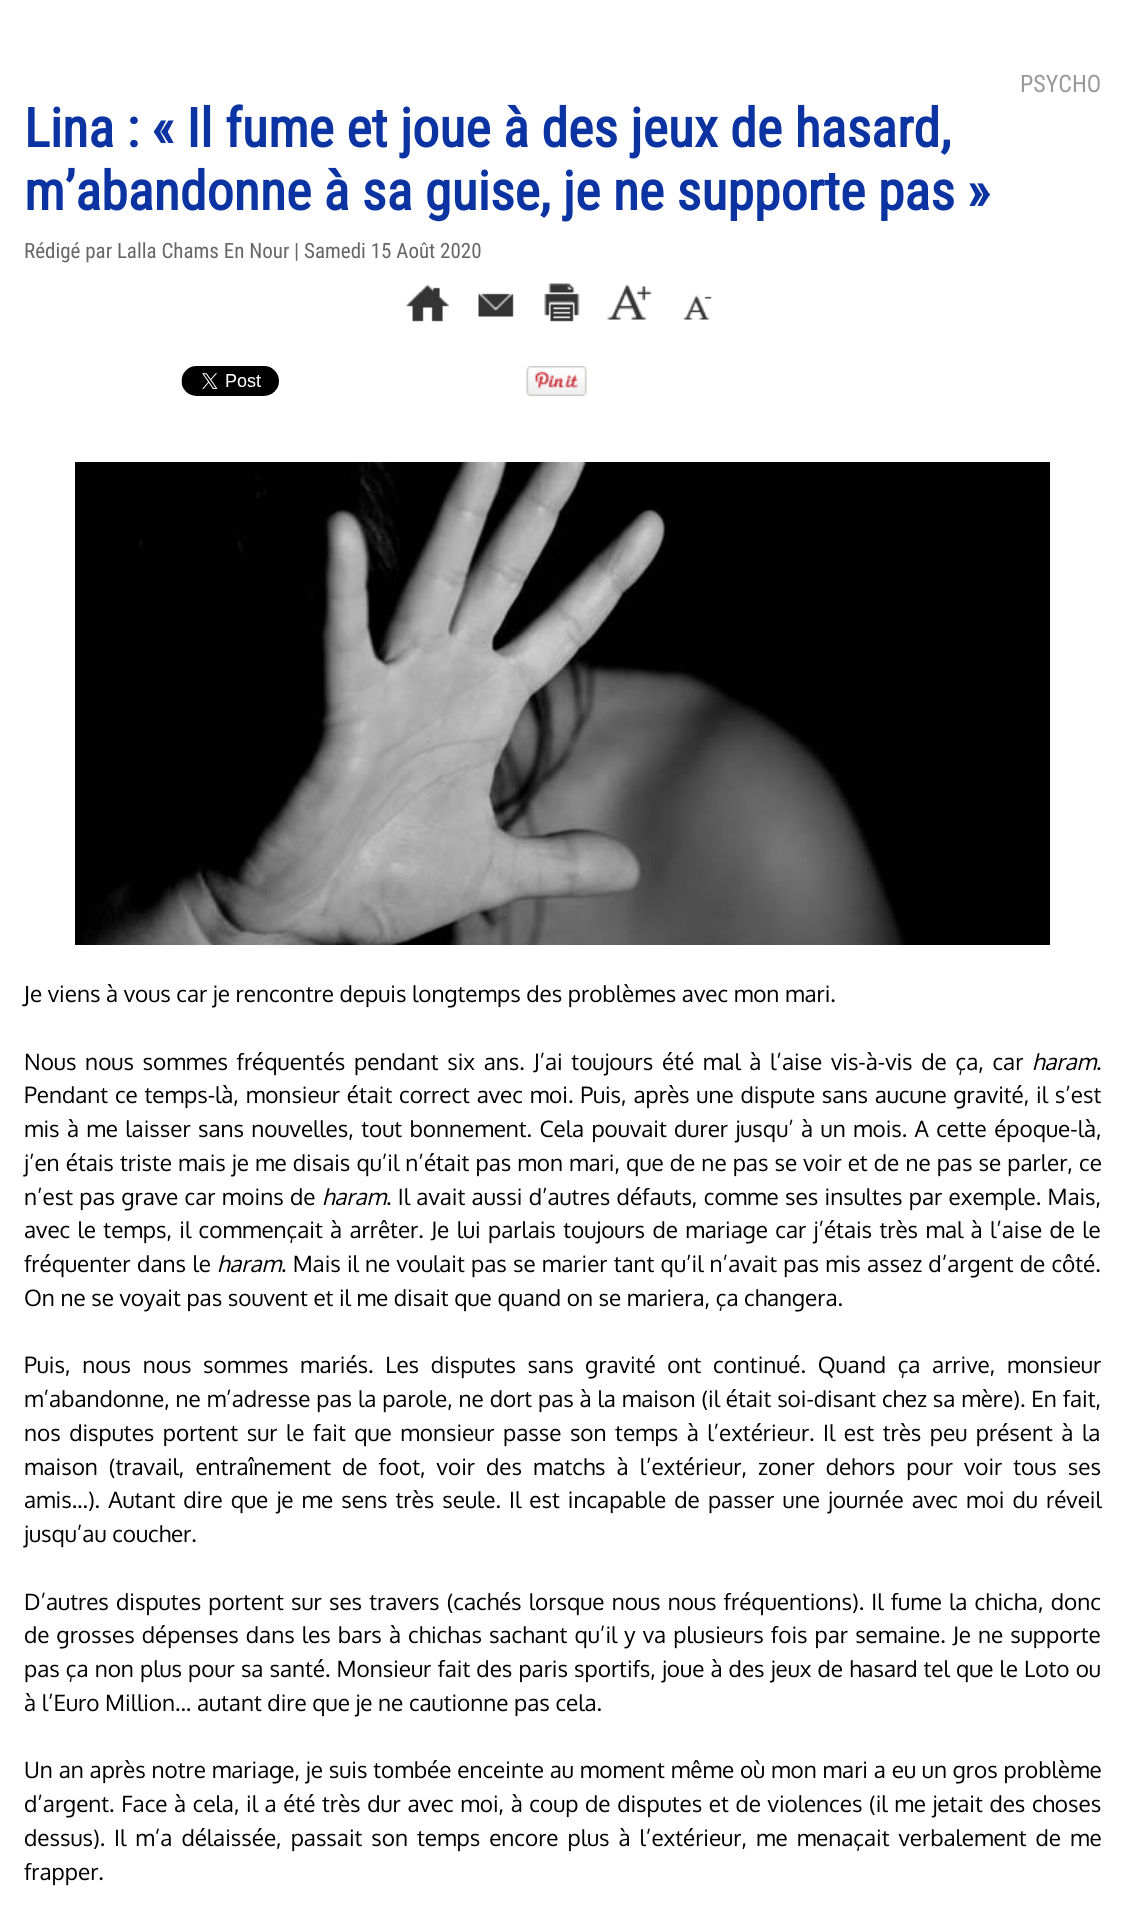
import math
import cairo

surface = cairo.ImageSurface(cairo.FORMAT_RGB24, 1125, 1907)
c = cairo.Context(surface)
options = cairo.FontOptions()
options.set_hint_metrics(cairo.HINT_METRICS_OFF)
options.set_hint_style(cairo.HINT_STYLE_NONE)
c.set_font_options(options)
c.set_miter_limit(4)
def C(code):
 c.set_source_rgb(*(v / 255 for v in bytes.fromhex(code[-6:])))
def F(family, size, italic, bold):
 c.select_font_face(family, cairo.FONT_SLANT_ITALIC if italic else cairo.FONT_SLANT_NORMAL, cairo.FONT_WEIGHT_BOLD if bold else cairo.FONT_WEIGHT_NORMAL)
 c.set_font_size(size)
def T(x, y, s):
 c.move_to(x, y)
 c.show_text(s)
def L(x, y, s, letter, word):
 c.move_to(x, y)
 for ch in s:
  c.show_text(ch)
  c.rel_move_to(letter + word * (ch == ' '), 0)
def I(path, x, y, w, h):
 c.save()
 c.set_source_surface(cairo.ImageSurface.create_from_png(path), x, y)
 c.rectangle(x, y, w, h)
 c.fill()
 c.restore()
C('ffffff')
c.paint()
F('Roboto Condensed',24,0,0)
C('999999')
T(1020,92,'PSYCHO')
F('Roboto Condensed',54,0,1)
C('0b33a1')
T(24,147,'Lina : « Il fume et joue à des jeux de hasard,')
T(24,210,'m’abandonne à sa guise, je ne supporte pas »')
F('Roboto Condensed',21,0,0)
C('666666')
T(24,258,'Rédigé par Lalla Chams En Nour | Samedi 15 Août 2020')
I('1.png',406,284,43,38)
I('2.png',478,293,36,24)
I('3.png',544,283,36,39)
I('4.png',607,284,45,36)
I('5.png',683,295,29,25)
I('6.png',181,366,98,30)
I('7.png',526,366,61,30)
I('8.png',75,462,975,483)
F('Noto Sans',22.5,0,0)
C('000000')
T(24,1002,'J')
F('Oxygen',22.5,0,0)
T(30,1002,'e viens à vous car je rencontre depuis longtemps des problèmes avec mon mari.')
L(24,1070,'Nous nous sommes fréquentés pendant six ans. J’ai toujours été mal à l’aise vis-à-vis de ça, car',0,3.1)
F('Oxygen',22.5,1,0)
T(1032,1070,'haram')
F('Oxygen',22.5,0,0)
T(1096,1070,'.')
L(24,1103,'Pendant ce temps-là, monsieur était correct avec moi. Puis, après une dispute sans aucune gravité, il s’est',0,1.2)
L(24,1137,'mis à me laisser sans nouvelles, tout bonnement. Cela pouvait durer jusqu’ à un mois. A cette époque-là,',0,1.75)
L(24,1171,'j’en étais triste mais je me disais qu’il n’était pas mon mari, que de ne pas se voir et de ne pas se parler, ce',0,.5)
L(24,1205,'n’est pas grave car moins de',0,.75)
F('Oxygen',22.5,1,0)
T(322,1205,'haram')
F('Oxygen',22.5,0,0)
L(386,1205,'. Il avait aussi d’autres défauts, comme ses insultes par exemple. Mais,',0,.75)
L(24,1238,'avec le temps, il commençait à arrêter. Je lui parlais toujours de mariage car j’étais très mal à l’aise de le',0,1.75)
L(24,1272,'fréquenter dans le',0,1)
F('Oxygen',22.5,1,0)
T(217,1272,'haram')
F('Oxygen',22.5,0,0)
L(281,1272,'. Mais il ne voulait pas se marier tant qu’il n’avait pas mis assez d’argent de côté.',0,.6)
T(24,1306,'On ne se voyait pas souvent et il me disait que quand on se mariera, ça changera.')
L(24,1373,'Puis, nous nous sommes mariés. Les disputes sans gravité ont continué. Quand ça arrive, monsieur',0,6.1)
L(24,1407,'m’abandonne, ne m’adresse pas la parole, ne dort pas à la maison (il était soi-disant chez sa mère). En fait,',0,.25)
L(24,1441,'nos disputes portent sur le fait que monsieur passe son temps à l’extérieur. Il est très peu présent à la',0,2.9)
L(24,1475,'maison (travail, entraînement de foot, voir des matchs à l’extérieur, zoner dehors pour voir tous ses',0,5.4)
L(24,1508,'amis...). Autant dire que je me sens très seule. Il est incapable de passer une journée avec moi du réveil',0,2.5)
T(24,1542,'jusqu’au coucher.')
L(24,1610,'D’autres disputes portent sur ses travers (cachés lorsque nous nous fréquentions). Il fume la chicha, donc',0,1.6)
L(24,1643,'de grosses dépenses dans les bars à chichas sachant qu’il y va plusieurs fois par semaine. Je ne supporte',0,1.5)
L(24,1677,'pas ça non plus pour sa santé. Monsieur fait des paris sportifs, joue à des jeux de hasard tel que le Loto ou',0,.5)
T(24,1711,'à l’Euro Million... autant dire que je ne cautionne pas cela.')
L(24,1778,'Un an après notre mariage, je suis tombée enceinte au moment même où mon mari a eu un gros problème',0,.25)
L(24,1812,'d’argent. Face à cela, il a été très dur avec moi, à coup de disputes et de violences (il me jetait des choses',0,1)
L(24,1846,'dessus). Il m’a délaissée, passait son temps encore plus à l’extérieur, me menaçait verbalement de me',0,3.4)
T(24,1880,'frapper.')
surface.write_to_png('o.png')
